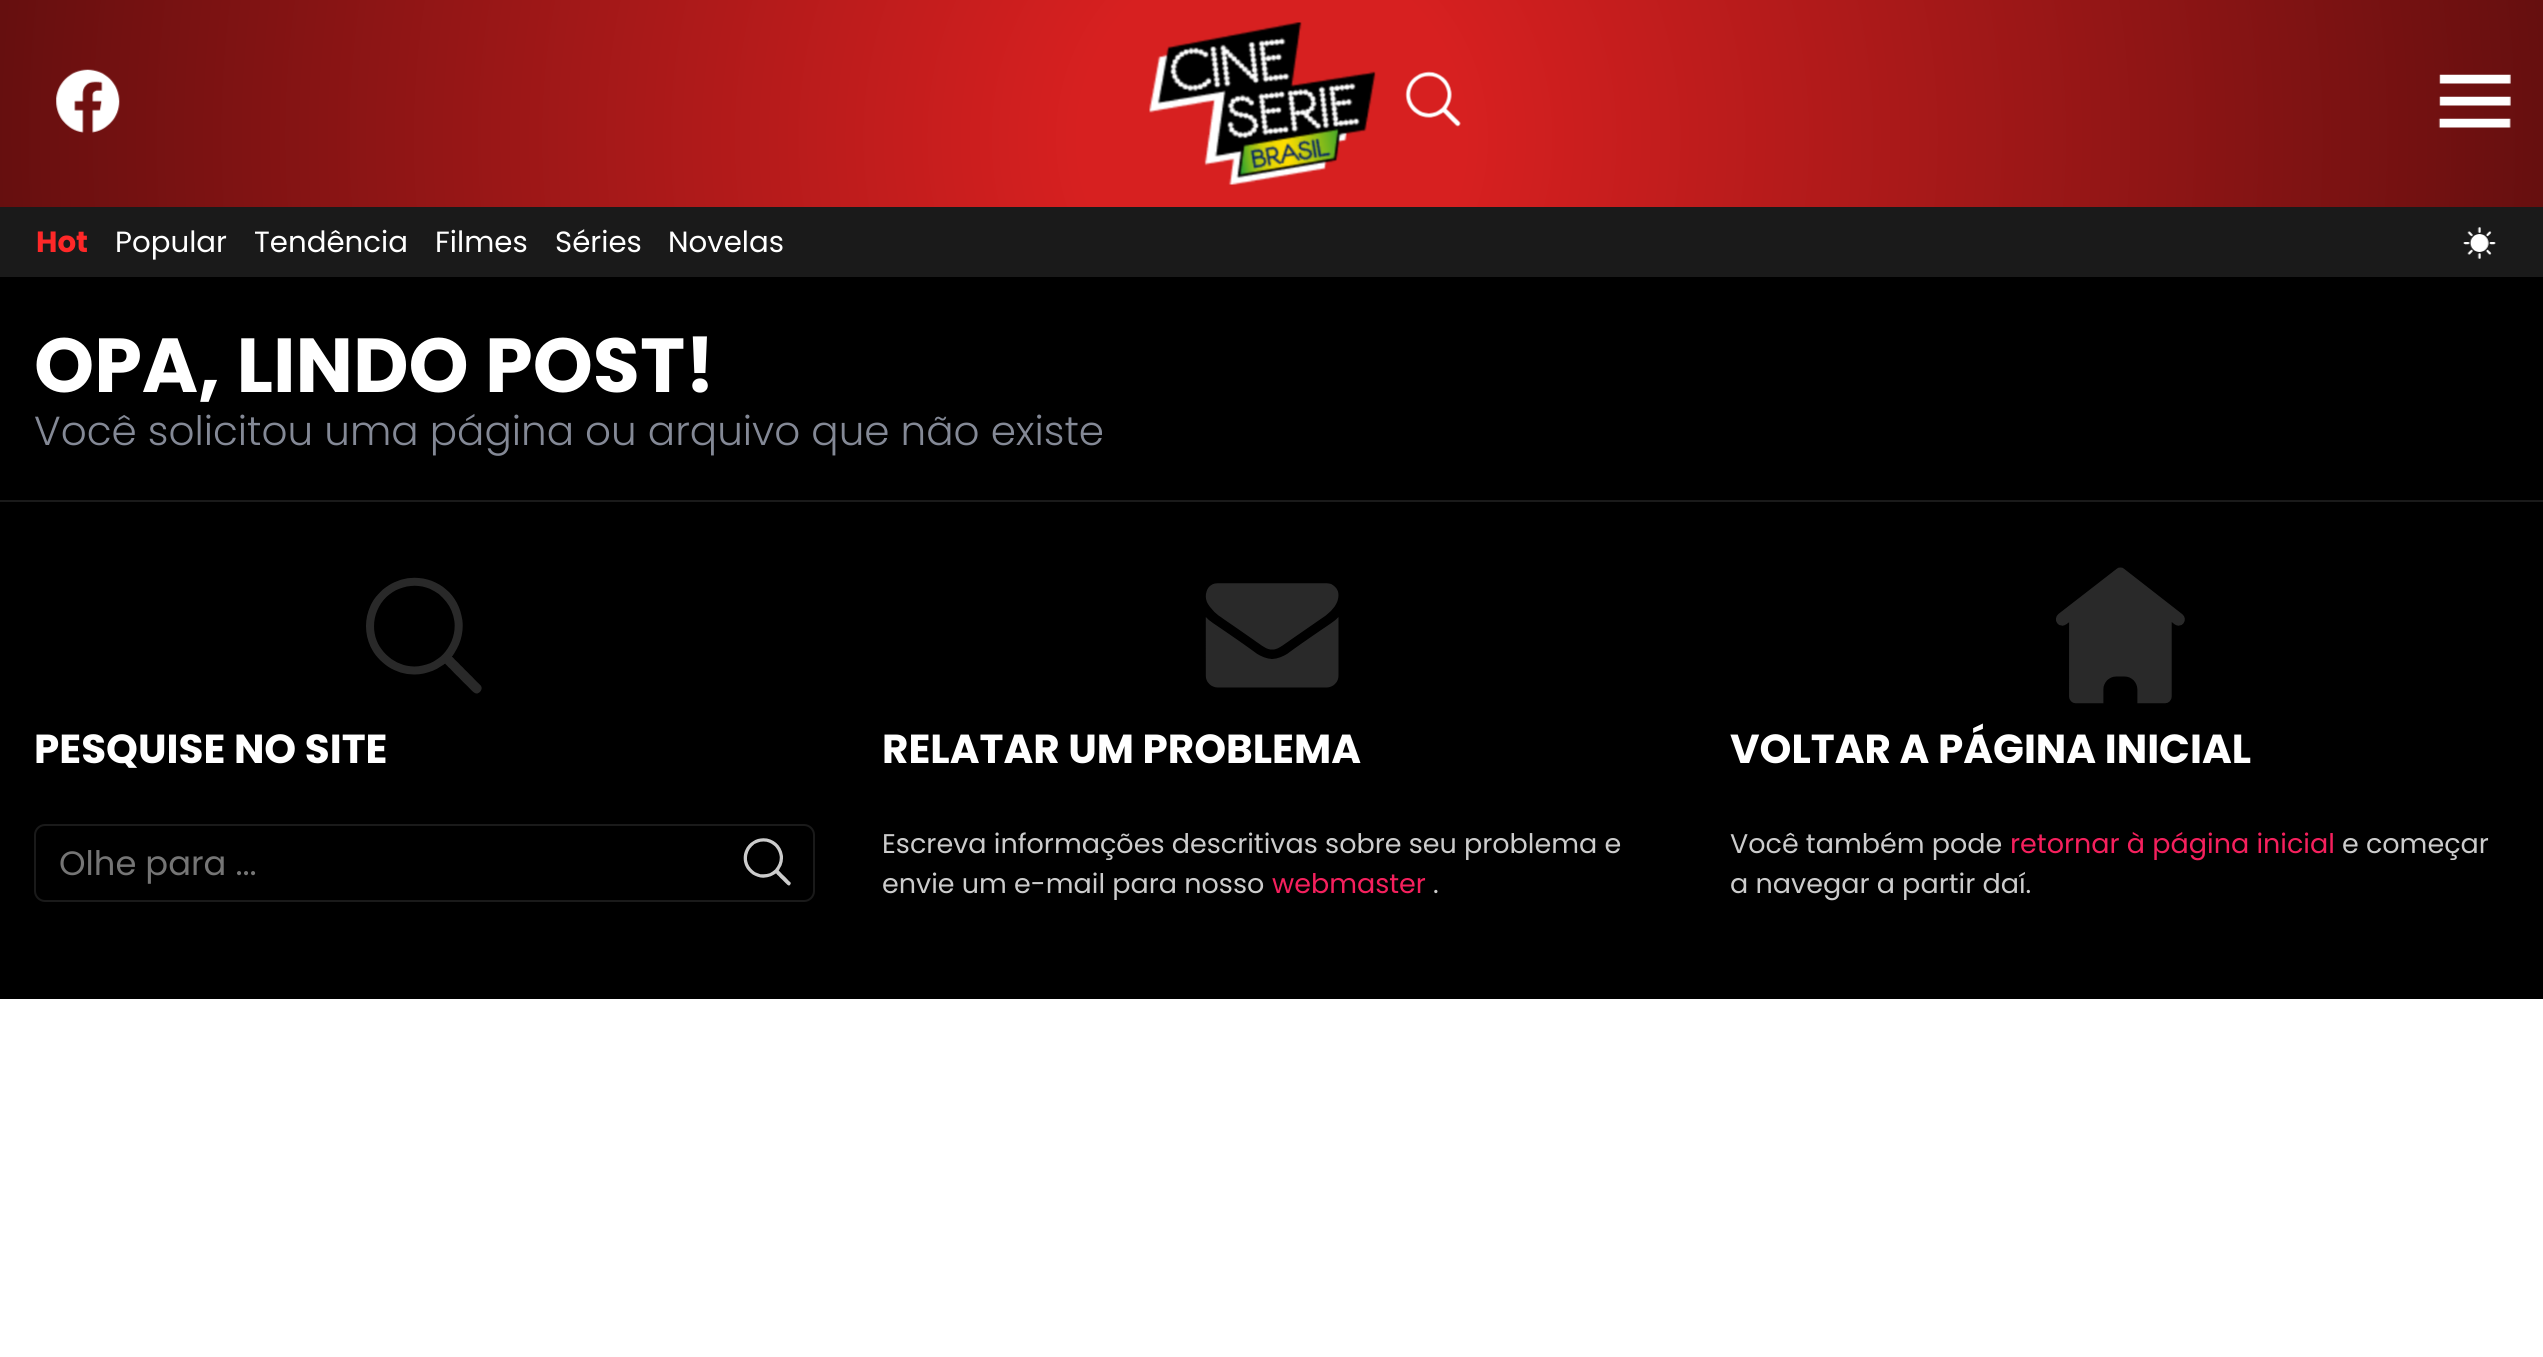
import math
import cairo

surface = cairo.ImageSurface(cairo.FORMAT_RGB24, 2543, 1357)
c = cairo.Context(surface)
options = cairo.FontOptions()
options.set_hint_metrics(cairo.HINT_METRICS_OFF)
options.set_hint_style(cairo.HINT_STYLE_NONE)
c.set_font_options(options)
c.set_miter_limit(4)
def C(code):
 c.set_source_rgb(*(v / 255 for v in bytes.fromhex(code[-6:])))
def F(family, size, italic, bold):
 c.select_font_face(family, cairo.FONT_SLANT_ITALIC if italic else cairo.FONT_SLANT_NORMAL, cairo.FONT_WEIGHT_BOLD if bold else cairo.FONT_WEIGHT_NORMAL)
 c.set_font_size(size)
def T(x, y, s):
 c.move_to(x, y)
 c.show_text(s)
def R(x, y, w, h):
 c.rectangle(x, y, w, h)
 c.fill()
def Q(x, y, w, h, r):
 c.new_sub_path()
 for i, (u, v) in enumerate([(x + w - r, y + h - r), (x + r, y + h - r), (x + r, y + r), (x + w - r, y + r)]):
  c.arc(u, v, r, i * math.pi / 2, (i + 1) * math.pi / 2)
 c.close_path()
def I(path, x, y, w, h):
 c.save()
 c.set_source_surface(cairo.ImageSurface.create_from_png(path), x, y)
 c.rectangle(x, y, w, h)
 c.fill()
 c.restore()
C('ffffff')
c.paint()
gradient = cairo.RadialGradient(1272,138,0,1272,138,1600)
gradient.add_color_stop_rgba(.12,0.843,0.125,0.125,1)
gradient.add_color_stop_rgba(1,0.267,0.039,0.039,1)
c.set_source(gradient)
R(0,0,2543,207)
I('1.png',56,69,64,64)
I('2.png',1149,22,227,163)
I('3.png',1405,71,56,56)
I('4.png',2438,74,73,54)
C('1a1a1a')
R(0,207,2543,70)
F('Poppins',29.25,0,1)
C('ff2828')
T(36,252,'Hot')
F('Poppins',29.25,0,0)
C('ffffff')
T(115,252,'Popular')
T(254,252,'Tendência')
T(435,252,'Filmes')
T(555,252,'Séries')
T(668,252,'Novelas')
I('5.png',2463,227,33,32)
C('000000')
R(0,277,2543,223)
C('1a1a1a')
R(0,500,2543,2)
F('Poppins',76.5,0,1)
C('ffffff')
T(34,392,'OPA, LINDO POST!')
F('Poppins Light',40.5,0,0)
C('848996')
T(34,445,'Você solicitou uma página ou arquivo que não existe')
C('000000')
R(0,502,2543,497)
I('6.png',366,577,116,117)
F('Poppins',40.5,0,1)
C('ffffff')
T(34,763,'PESQUISE NO SITE')
Q(35,825,779,76,10)
C('1a1a1a')
c.stroke()
F('Poppins',33.75,0,0)
C('757575')
T(59,875,'Olhe para ...')
I('7.png',743,838,48,48)
I('8.png',1205,583,134,105)
F('Poppins',40.5,0,1)
C('ffffff')
T(882,763,'RELATAR UM PROBLEMA')
F('Poppins',27,0,0)
C('cccccc')
T(882,853,'Escreva informações descritivas sobre seu problema e')
T(882,893,'envie um e-mail para nosso')
C('f5205d')
T(1272,893,'webmaster')
C('cccccc')
T(1433,893,'.')
I('9.png',2056,567,129,137)
F('Poppins',40.5,0,1)
C('ffffff')
T(1730,763,'VOLTAR A PÁGINA INICIAL')
F('Poppins',27,0,0)
C('cccccc')
T(1730,853,'Você também pode')
C('f5205d')
T(2010,853,'retornar à página inicial')
C('cccccc')
T(2342,853,'e começar')
T(1730,893,'a navegar a partir daí.')
surface.write_to_png('o.png')
